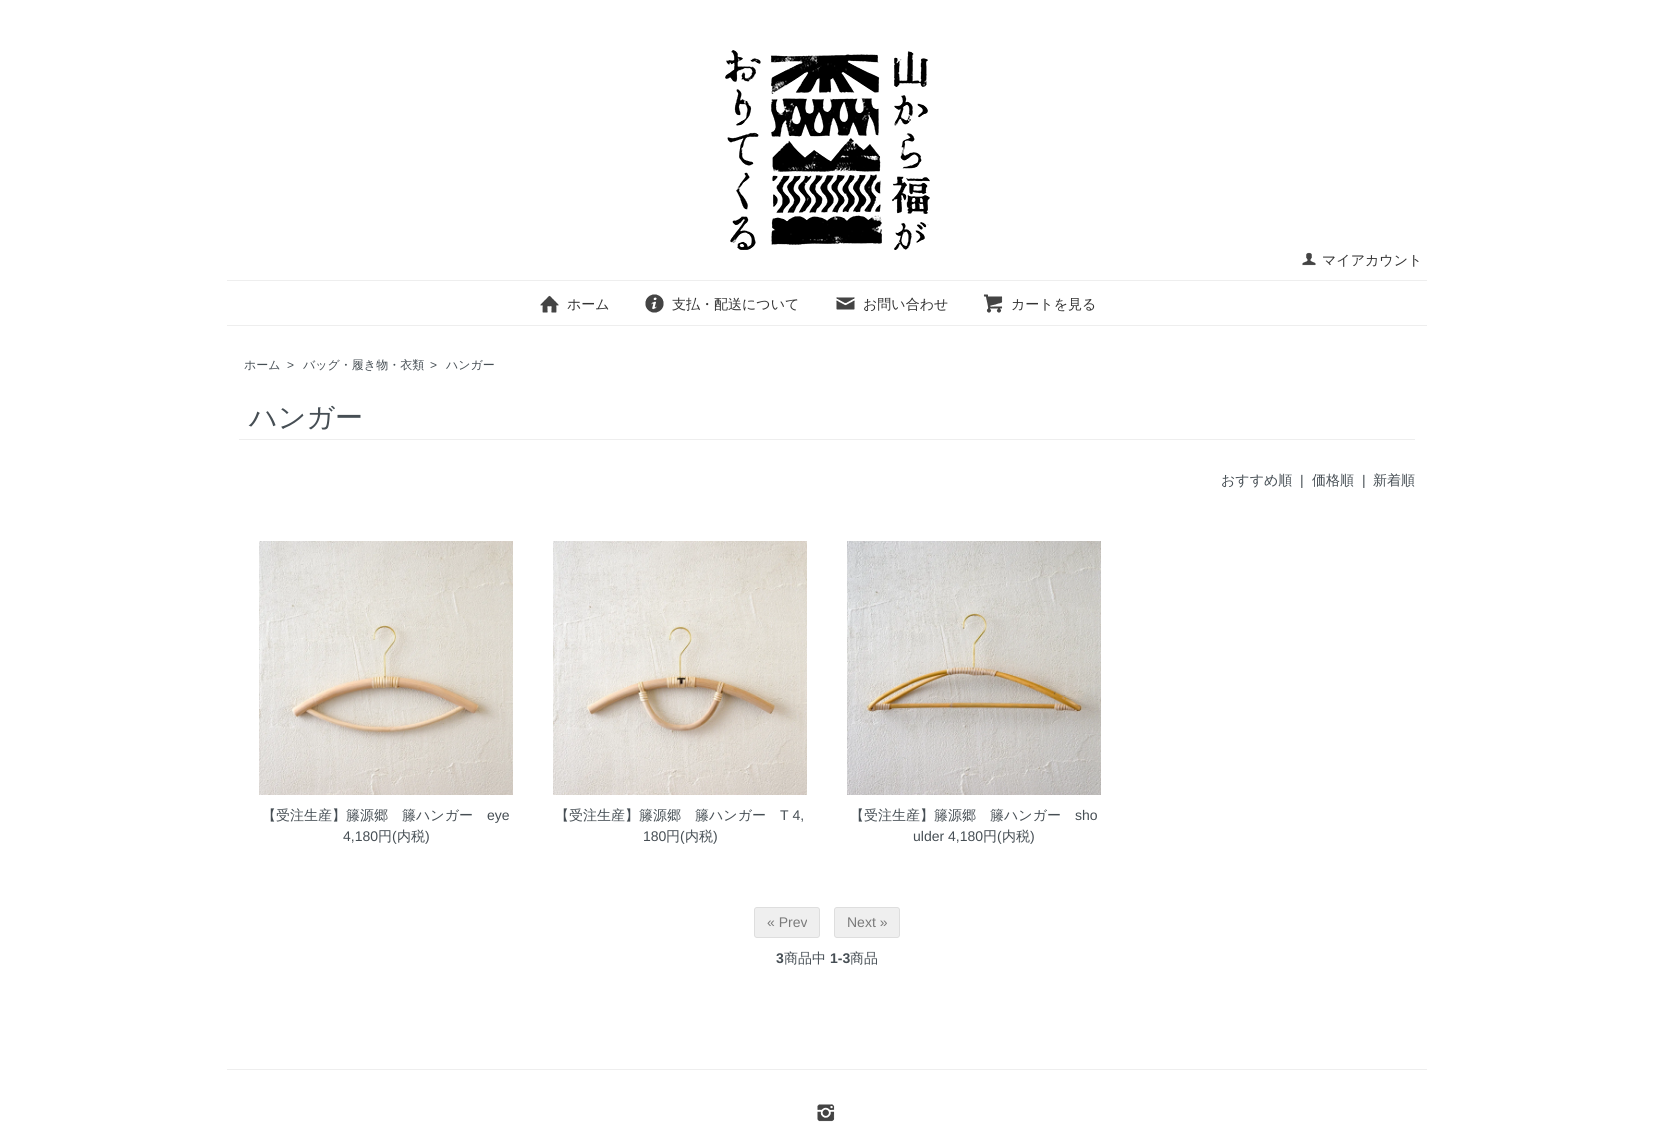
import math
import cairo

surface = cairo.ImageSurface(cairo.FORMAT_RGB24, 1654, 1126)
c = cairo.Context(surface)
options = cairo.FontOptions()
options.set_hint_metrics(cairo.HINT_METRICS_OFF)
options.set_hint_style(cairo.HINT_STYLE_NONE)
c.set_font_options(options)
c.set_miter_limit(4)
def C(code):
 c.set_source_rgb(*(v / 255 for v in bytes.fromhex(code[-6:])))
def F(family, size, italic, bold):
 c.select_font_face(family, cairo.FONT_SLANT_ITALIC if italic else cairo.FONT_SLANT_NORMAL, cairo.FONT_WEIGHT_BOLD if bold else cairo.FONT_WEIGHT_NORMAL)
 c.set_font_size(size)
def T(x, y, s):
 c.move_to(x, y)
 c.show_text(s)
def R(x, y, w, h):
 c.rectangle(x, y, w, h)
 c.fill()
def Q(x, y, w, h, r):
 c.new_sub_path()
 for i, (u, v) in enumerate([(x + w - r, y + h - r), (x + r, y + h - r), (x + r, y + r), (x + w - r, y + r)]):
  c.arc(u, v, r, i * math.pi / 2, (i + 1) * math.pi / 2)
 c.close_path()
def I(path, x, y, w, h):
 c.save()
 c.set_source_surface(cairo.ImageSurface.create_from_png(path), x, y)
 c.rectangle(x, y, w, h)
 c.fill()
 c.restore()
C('ffffff')
c.paint()
I('1.png',725,50,205,200)
I('2.png',1302,252,14,14)
F('WenQuanYi Zen Hei Medium',14,0,0)
C('333333')
T(1322,265,'マイアカウント')
C('eeeeee')
R(227,280,1200,1)
R(227,325,1200,1)
I('3.png',540,295,19,18)
C('333333')
T(567,309,'ホーム')
I('4.png',645,294,19,19)
T(672,309,'支払・配送について')
I('5.png',836,297,19,13)
T(863,309,'お問い合わせ')
I('6.png',983,294,20,19)
T(1011,309,'カートを見る')
F('WenQuanYi Zen Hei Medium',12,0,0)
C('464e54')
T(244,369,'ホーム')
F('Liberation Sans',12,0,0)
T(287,369,'>')
F('WenQuanYi Zen Hei Medium',12,0,0)
T(303,369,'バッグ・履き物・衣類')
F('Liberation Sans',12,0,0)
T(430,369,'>')
F('WenQuanYi Zen Hei Medium',12,0,0)
T(446,369,'ハンガー')
C('eeeeee')
R(239,439,1176,1)
F('WenQuanYi Zen Hei Medium',28,0,0)
C('464e54')
T(249,427,'ハンガー')
F('WenQuanYi Zen Hei Medium',14,0,0)
T(1221,485,'おすすめ順')
F('Liberation Sans',14,0,0)
T(1300,485,'|')
F('WenQuanYi Zen Hei Medium',14,0,0)
T(1312,485,'価格順')
F('Liberation Sans',14,0,0)
T(1362,485,'|')
F('WenQuanYi Zen Hei Medium',14,0,0)
T(1373,485,'新着順')
I('7.png',259,541,254,254)
T(262,820,'【受注生産】籐源郷　籐ハンガー')
F('Liberation Sans',14,0,0)
T(487,820,'eye')
T(343,841,'4,180')
F('WenQuanYi Zen Hei Medium',14,0,0)
T(378,841,'円')
F('Liberation Sans',14,0,0)
T(392,841,'(')
F('WenQuanYi Zen Hei Medium',14,0,0)
T(397,841,'内税')
F('Liberation Sans',14,0,0)
T(425,841,')')
I('8.png',553,541,254,254)
F('WenQuanYi Zen Hei Medium',14,0,0)
T(555,820,'【受注生産】籐源郷　籐ハンガー')
F('Liberation Sans',14,0,0)
T(780,820,'T 4,')
T(643,841,'180')
F('WenQuanYi Zen Hei Medium',14,0,0)
T(666,841,'円')
F('Liberation Sans',14,0,0)
T(680,841,'(')
F('WenQuanYi Zen Hei Medium',14,0,0)
T(685,841,'内税')
F('Liberation Sans',14,0,0)
T(713,841,')')
I('9.png',847,541,254,254)
F('WenQuanYi Zen Hei Medium',14,0,0)
T(850,820,'【受注生産】籐源郷　籐ハンガー')
F('Liberation Sans',14,0,0)
T(1075,820,'sho')
T(913,841,'ulder 4,180')
F('WenQuanYi Zen Hei Medium',14,0,0)
T(983,841,'円')
F('Liberation Sans',14,0,0)
T(997,841,'(')
F('WenQuanYi Zen Hei Medium',14,0,0)
T(1002,841,'内税')
F('Liberation Sans',14,0,0)
T(1030,841,')')
C('efefef')
Q(754.5,907.5,65,30,2.5)
c.fill_preserve()
C('dedede')
c.set_line_width(1)
c.stroke()
C('7a7a7a')
T(767,927,'« Prev')
C('efefef')
Q(834.5,907.5,65,30,2.5)
c.fill_preserve()
C('dedede')
c.stroke()
C('7a7a7a')
T(847,927,'Next »')
F('Liberation Sans',14,0,1)
C('464e54')
T(776,963,'3')
F('WenQuanYi Zen Hei Medium',14,0,0)
T(784,963,'商品中')
F('Liberation Sans',14,0,1)
T(830,963,'1-3')
F('WenQuanYi Zen Hei Medium',14,0,0)
T(850,963,'商品')
C('eeeeee')
R(227,1069,1200,1)
I('10.png',817,1104,18,18)
surface.write_to_png('o.png')
